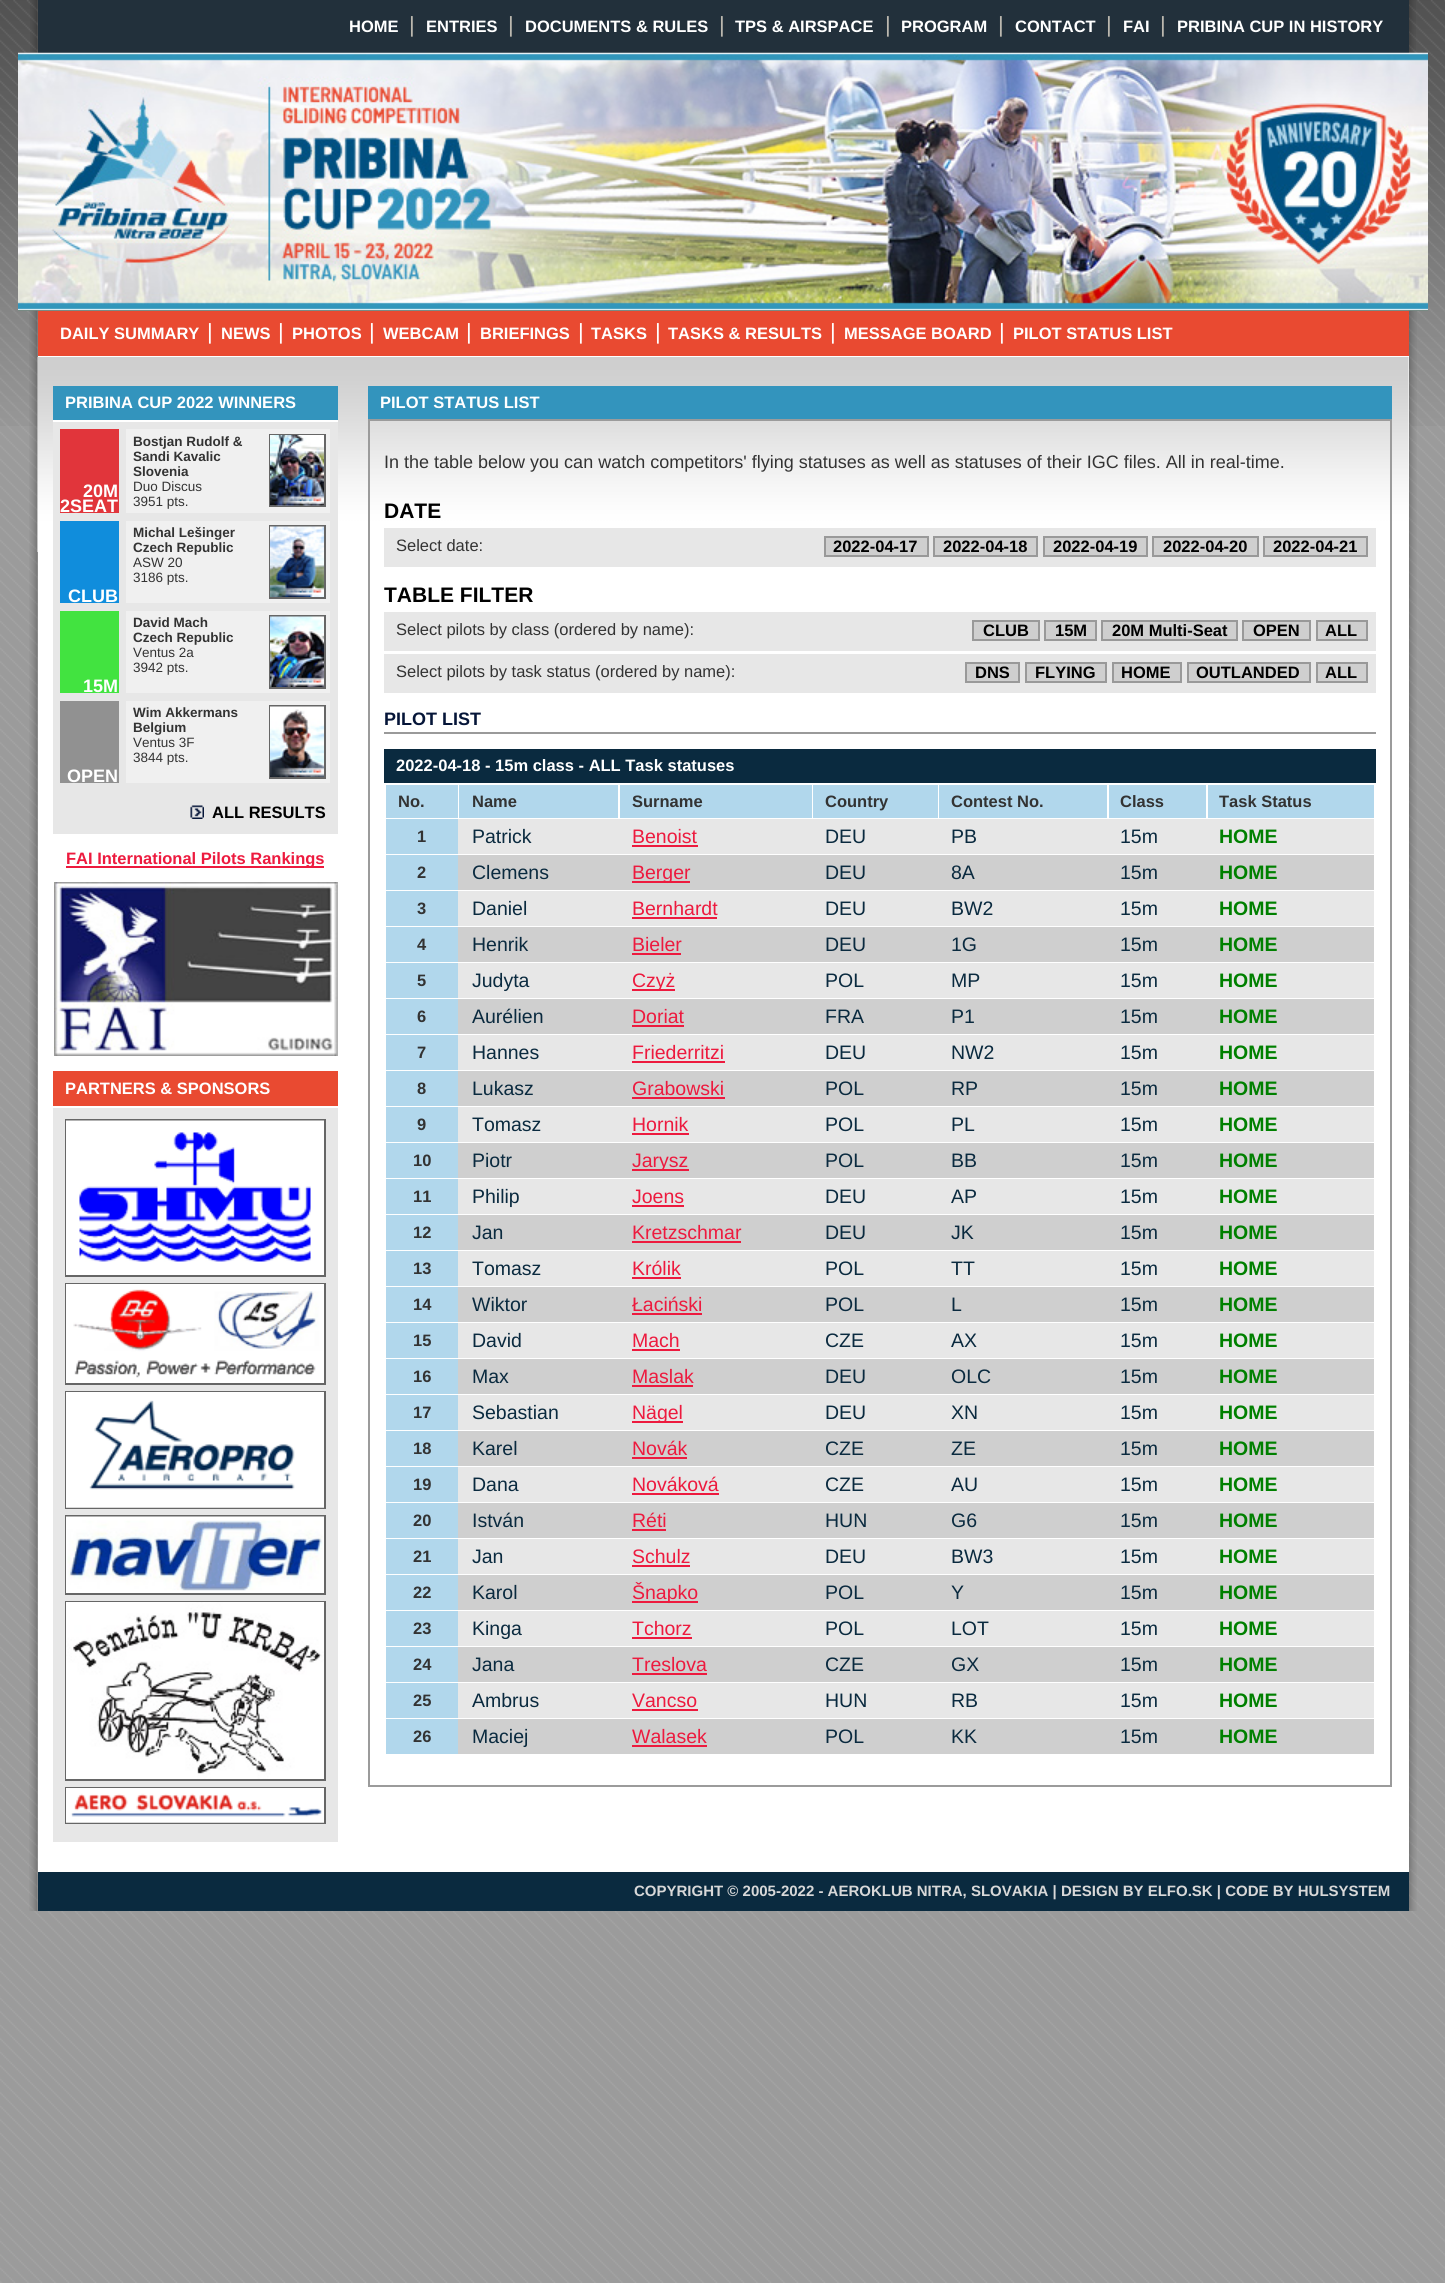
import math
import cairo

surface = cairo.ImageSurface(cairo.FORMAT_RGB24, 1445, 2283)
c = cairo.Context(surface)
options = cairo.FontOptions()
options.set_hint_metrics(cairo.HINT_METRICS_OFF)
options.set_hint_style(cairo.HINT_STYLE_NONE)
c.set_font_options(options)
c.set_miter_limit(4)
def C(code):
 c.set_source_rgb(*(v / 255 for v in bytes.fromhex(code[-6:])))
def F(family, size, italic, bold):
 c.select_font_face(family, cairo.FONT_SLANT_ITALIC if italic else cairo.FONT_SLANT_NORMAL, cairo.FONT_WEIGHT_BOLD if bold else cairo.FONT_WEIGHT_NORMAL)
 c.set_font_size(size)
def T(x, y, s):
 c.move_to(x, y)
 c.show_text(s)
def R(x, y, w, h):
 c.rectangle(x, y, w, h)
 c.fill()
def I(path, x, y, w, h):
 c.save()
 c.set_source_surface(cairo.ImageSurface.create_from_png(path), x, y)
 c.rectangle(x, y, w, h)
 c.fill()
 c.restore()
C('ffffff')
c.paint()
I('1.png',0,1911,1445,372)
I('2.png',0,426,1445,1485)
I('3.png',0,0,1445,426)
I('4.png',30,0,8,53)
I('5.png',1409,0,7,53)
C('22303b')
R(38,0,1371,53)
F('Liberation Sans',16.5,0,1)
C('ffffff')
T(349,32,'HOME')
F('Liberation Sans',22,0,0)
C('bcb8af')
T(409,32,'|')
F('Liberation Sans',16.5,0,1)
C('ffffff')
T(426,32,'ENTRIES')
F('Liberation Sans',22,0,0)
C('bcb8af')
T(508,32,'|')
F('Liberation Sans',16.5,0,1)
C('ffffff')
T(525,32,'DOCUMENTS & RULES')
F('Liberation Sans',22,0,0)
C('bcb8af')
T(719,32,'|')
F('Liberation Sans',16.5,0,1)
C('ffffff')
T(735,32,'TPS & AIRSPACE')
F('Liberation Sans',22,0,0)
C('bcb8af')
T(885,32,'|')
F('Liberation Sans',16.5,0,1)
C('ffffff')
T(901,32,'PROGRAM')
F('Liberation Sans',22,0,0)
C('bcb8af')
T(998,32,'|')
F('Liberation Sans',16.5,0,1)
C('ffffff')
T(1015,32,'CONTACT')
F('Liberation Sans',22,0,0)
C('bcb8af')
T(1106,32,'|')
F('Liberation Sans',16.5,0,1)
C('ffffff')
T(1123,32,'FAI')
F('Liberation Sans',22,0,0)
C('bcb8af')
T(1160,32,'|')
F('Liberation Sans',16.5,0,1)
C('ffffff')
T(1177,32,'PRIBINA CUP IN HISTORY')
C('4b635b')
R(18,310,1410,1)
I('7.png',29,310,9,1601)
I('8.png',1408,310,9,1601)
I('6.png',18,52,1410,259)
C('e94a31')
R(38,311,1371,45)
C('ffffff')
T(60,339,'DAILY SUMMARY')
F('Liberation Sans',22,0,0)
T(207,339,'|')
F('Liberation Sans',16.5,0,1)
T(221,339,'NEWS')
F('Liberation Sans',22,0,0)
T(278,339,'|')
F('Liberation Sans',16.5,0,1)
T(292,339,'PHOTOS')
F('Liberation Sans',22,0,0)
T(369,339,'|')
F('Liberation Sans',16.5,0,1)
T(383,339,'WEBCAM')
F('Liberation Sans',22,0,0)
T(466,339,'|')
F('Liberation Sans',16.5,0,1)
T(480,339,'BRIEFINGS')
F('Liberation Sans',22,0,0)
T(578,339,'|')
F('Liberation Sans',16.5,0,1)
T(591,339,'TASKS')
F('Liberation Sans',22,0,0)
T(655,339,'|')
F('Liberation Sans',16.5,0,1)
T(668,339,'TASKS & RESULTS')
F('Liberation Sans',22,0,0)
T(830,339,'|')
F('Liberation Sans',16.5,0,1)
T(844,339,'MESSAGE BOARD')
F('Liberation Sans',22,0,0)
T(999,339,'|')
F('Liberation Sans',16.5,0,1)
T(1013,339,'PILOT STATUS LIST')
R(38,356,1371,1516)
I('9.png',37,357,1372,195)
C('e7e7e7')
R(53,422,285,412)
C('3394bd')
R(53,386,285,34)
C('ffffff')
R(53,420,285,2)
T(65,408,'PRIBINA CUP 2022 WINNERS')
C('e1353b')
R(60,429,59,84)
F('Liberation Sans',18,0,1)
C('ffffff')
T(83,497,'20M')
T(60,512,'2SEAT')
C('f0f0f0')
R(126,429,204,84)
F('Liberation Sans',13.5,0,1)
C('333333')
T(133,446,'Bostjan Rudolf &')
c.rectangle(270,435,55,71)
C('666666')
c.stroke()
C('b0b0b0')
R(270,505,54,1)
I('10.png',270,435,54,71)
C('333333')
T(133,461,'Sandi Kavalic')
T(133,476,'Slovenia')
F('Liberation Sans',13.5,0,0)
T(133,491,'Duo Discus')
T(133,506,'3951 pts.')
C('f0f0f0')
R(126,521,204,82)
F('Liberation Sans',13.5,0,1)
C('333333')
T(133,537,'Michal Lešinger')
c.rectangle(270,526,55,72)
C('666666')
c.stroke()
I('11.png',270,526,54,71)
C('333333')
T(133,552,'Czech Republic')
F('Liberation Sans',13.5,0,0)
T(133,567,'ASW 20')
T(133,582,'3186 pts.')
C('108ddc')
R(60,521,59,82)
F('Liberation Sans',18,0,1)
C('ffffff')
T(68,602,'CLUB')
C('f0f0f0')
R(126,611,204,82)
F('Liberation Sans',13.5,0,1)
C('333333')
T(133,627,'David Mach')
c.rectangle(270,616,55,72)
C('666666')
c.stroke()
I('12.png',270,616,54,71)
C('333333')
T(133,642,'Czech Republic')
F('Liberation Sans',13.5,0,0)
T(133,657,'Ventus 2a')
T(133,672,'3942 pts.')
C('42e340')
R(60,611,59,82)
F('Liberation Sans',18,0,1)
C('ffffff')
T(83,692,'15M')
C('f0f0f0')
R(126,701,204,82)
F('Liberation Sans',13.5,0,1)
C('333333')
T(133,717,'Wim Akkermans')
c.rectangle(270,706,55,72)
C('666666')
c.stroke()
I('13.png',270,706,54,71)
C('333333')
T(133,732,'Belgium')
F('Liberation Sans',13.5,0,0)
T(133,747,'Ventus 3F')
T(133,762,'3844 pts.')
C('919191')
R(60,701,59,82)
F('Liberation Sans',18,0,1)
C('ffffff')
T(67,782,'OPEN')
I('14.png',190,805,14,14)
F('Liberation Sans',16.5,0,1)
C('000000')
T(212,818,'ALL RESULTS')
C('ed1a3e')
R(66,866,258,2)
T(66,864,'FAI International Pilots Rankings')
C('b0b0b0')
R(337,882,1,174)
I('15.png',54,882,284,174)
C('e7e7e7')
R(53,1108,285,734)
C('e94a31')
R(53,1071,285,35)
C('ffffff')
T(65,1094,'PARTNERS & SPONSORS')
c.rectangle(66,1120,259,156)
C('666666')
c.stroke()
I('16.png',66,1120,258,155)
c.rectangle(66,1284,259,100)
c.stroke()
I('17.png',66,1284,258,99)
c.rectangle(66,1392,259,116)
c.stroke()
C('b0b0b0')
R(66,1507,258,1)
I('18.png',66,1392,258,116)
c.rectangle(66,1516,259,78)
C('666666')
c.stroke()
I('19.png',66,1516,258,77)
c.rectangle(66,1602,259,178)
c.stroke()
I('20.png',66,1602,258,177)
c.rectangle(66,1788,259,35)
c.stroke()
C('b0b0b0')
R(66,1822,258,1)
I('21.png',66,1788,258,35)
C('3394bd')
R(368,386,1024,33)
C('ffffff')
T(380,408,'PILOT STATUS LIST')
c.rectangle(369,420,1022,1366)
C('9b9b9b')
c.stroke()
F('Liberation Sans',18,0,0)
C('333333')
T(384,468,'In the table below you can watch competitors\' flying statuses as well as statuses of their IGC files. All in real-time.')
F('Liberation Sans',21,0,1)
C('000000')
T(384,518,'DATE')
C('e7e7e7')
R(384,528,992,39)
F('Liberation Sans',16.5,0,0)
C('333333')
T(396,551,'Select date:')
C('cfcfcf')
c.rectangle(825,537,103,19)
c.fill_preserve()
C('999999')
c.stroke()
F('Liberation Sans',16.5,0,1)
C('000000')
T(833,552,'2022-04-17')
C('cfcfcf')
c.rectangle(934,537,103,19)
c.fill_preserve()
C('999999')
c.stroke()
C('000000')
T(943,552,'2022-04-18')
C('cfcfcf')
c.rectangle(1044,537,103,19)
c.fill_preserve()
C('999999')
c.stroke()
C('000000')
T(1053,552,'2022-04-19')
C('cfcfcf')
c.rectangle(1153,537,105,19)
c.fill_preserve()
C('999999')
c.stroke()
C('000000')
T(1163,552,'2022-04-20')
C('cfcfcf')
c.rectangle(1264,537,103,19)
c.fill_preserve()
C('999999')
c.stroke()
C('000000')
T(1273,552,'2022-04-21')
F('Liberation Sans',21,0,1)
T(384,602,'TABLE FILTER')
C('e7e7e7')
R(384,612,992,39)
F('Liberation Sans',16.5,0,0)
C('333333')
T(396,635,'Select pilots by class (ordered by name):')
C('cfcfcf')
c.rectangle(973,621,66,19)
c.fill_preserve()
C('999999')
c.stroke()
F('Liberation Sans',16.5,0,1)
C('000000')
T(983,636,'CLUB')
C('cfcfcf')
c.rectangle(1045,621,51,19)
c.fill_preserve()
C('999999')
c.stroke()
C('000000')
T(1055,636,'15M')
C('cfcfcf')
c.rectangle(1102,621,135,19)
c.fill_preserve()
C('999999')
c.stroke()
C('000000')
T(1112,636,'20M Multi-Seat')
C('cfcfcf')
c.rectangle(1243,621,67,19)
c.fill_preserve()
C('999999')
c.stroke()
C('000000')
T(1253,636,'OPEN')
C('cfcfcf')
c.rectangle(1317,621,50,19)
c.fill_preserve()
C('999999')
c.stroke()
C('000000')
T(1325,636,'ALL')
C('e7e7e7')
R(384,654,992,39)
F('Liberation Sans',16.5,0,0)
C('333333')
T(396,677,'Select pilots by task status (ordered by name):')
C('cfcfcf')
c.rectangle(966,663,53,19)
c.fill_preserve()
C('999999')
c.stroke()
F('Liberation Sans',16.5,0,1)
C('000000')
T(975,678,'DNS')
C('cfcfcf')
c.rectangle(1026,663,80,19)
c.fill_preserve()
C('999999')
c.stroke()
C('000000')
T(1035,678,'FLYING')
C('cfcfcf')
c.rectangle(1113,663,68,19)
c.fill_preserve()
C('999999')
c.stroke()
C('000000')
T(1121,678,'HOME')
C('cfcfcf')
c.rectangle(1188,663,122,19)
c.fill_preserve()
C('999999')
c.stroke()
C('000000')
T(1196,678,'OUTLANDED')
C('cfcfcf')
c.rectangle(1317,663,50,19)
c.fill_preserve()
C('999999')
c.stroke()
C('000000')
T(1325,678,'ALL')
C('9a9a9a')
R(384,732,992,2)
F('Liberation Sans',18,0,1)
C('051538')
T(384,725,'PILOT LIST')
C('0a2a3f')
R(384,749,992,34)
F('Liberation Sans',16.5,0,1)
C('ffffff')
T(396,771,'2022-04-18 - 15m class - ALL Task statuses')
C('b1d7ec')
R(386,785,72,33)
C('333333')
T(398,807,'No.')
C('b1d7ec')
R(459,785,159,33)
C('333333')
T(472,807,'Name')
C('b1d7ec')
R(620,785,192,33)
C('333333')
T(632,807,'Surname')
C('b1d7ec')
R(813,785,125,33)
C('333333')
T(825,807,'Country')
C('b1d7ec')
R(939,785,168,33)
C('333333')
T(951,807,'Contest No.')
C('b1d7ec')
R(1109,785,97,33)
C('333333')
T(1120,807,'Class')
C('b1d7ec')
R(1208,785,166,33)
C('333333')
T(1219,807,'Task Status')
C('e7e7e7')
R(458,819,916,35)
C('b1d7ec')
R(386,819,72,35)
C('333333')
T(417,842,'1')
F('Liberation Sans',19.5,0,0)
C('0a2a3f')
T(472,843,'Patrick')
C('ed1a3e')
T(632,843,'Benoist')
R(632,845,66,2)
C('0a2a3f')
T(825,843,'DEU')
T(951,843,'PB')
T(1120,843,'15m')
F('Liberation Sans',19.5,0,1)
C('008000')
T(1219,843,'HOME')
C('cfcfcf')
R(458,855,916,35)
C('b1d7ec')
R(386,855,72,35)
F('Liberation Sans',16.5,0,1)
C('333333')
T(417,878,'2')
F('Liberation Sans',19.5,0,0)
C('0a2a3f')
T(472,879,'Clemens')
C('ed1a3e')
R(632,881,58,2)
T(632,879,'Berger')
C('0a2a3f')
T(825,879,'DEU')
T(951,879,'8A')
T(1120,879,'15m')
F('Liberation Sans',19.5,0,1)
C('008000')
T(1219,879,'HOME')
C('e7e7e7')
R(458,891,916,35)
C('b1d7ec')
R(386,891,72,35)
F('Liberation Sans',16.5,0,1)
C('333333')
T(417,914,'3')
F('Liberation Sans',19.5,0,0)
C('0a2a3f')
T(472,915,'Daniel')
C('ed1a3e')
T(632,915,'Bernhardt')
R(632,917,85,2)
C('0a2a3f')
T(825,915,'DEU')
T(951,915,'BW2')
T(1120,915,'15m')
F('Liberation Sans',19.5,0,1)
C('008000')
T(1219,915,'HOME')
C('cfcfcf')
R(458,927,916,35)
C('b1d7ec')
R(386,927,72,35)
F('Liberation Sans',16.5,0,1)
C('333333')
T(417,950,'4')
F('Liberation Sans',19.5,0,0)
C('0a2a3f')
T(472,951,'Henrik')
C('ed1a3e')
T(632,951,'Bieler')
R(632,953,49,2)
C('0a2a3f')
T(825,951,'DEU')
T(951,951,'1G')
T(1120,951,'15m')
F('Liberation Sans',19.5,0,1)
C('008000')
T(1219,951,'HOME')
C('e7e7e7')
R(458,963,916,35)
C('b1d7ec')
R(386,963,72,35)
F('Liberation Sans',16.5,0,1)
C('333333')
T(417,986,'5')
F('Liberation Sans',19.5,0,0)
C('0a2a3f')
T(472,987,'Judyta')
C('ed1a3e')
R(632,989,43,2)
T(632,987,'Czyż')
C('0a2a3f')
T(825,987,'POL')
T(951,987,'MP')
T(1120,987,'15m')
F('Liberation Sans',19.5,0,1)
C('008000')
T(1219,987,'HOME')
C('cfcfcf')
R(458,999,916,35)
C('b1d7ec')
R(386,999,72,35)
F('Liberation Sans',16.5,0,1)
C('333333')
T(417,1022,'6')
F('Liberation Sans',19.5,0,0)
C('0a2a3f')
T(472,1023,'Aurélien')
C('ed1a3e')
T(632,1023,'Doriat')
R(632,1025,52,2)
C('0a2a3f')
T(825,1023,'FRA')
T(951,1023,'P1')
T(1120,1023,'15m')
F('Liberation Sans',19.5,0,1)
C('008000')
T(1219,1023,'HOME')
C('e7e7e7')
R(458,1035,916,35)
C('b1d7ec')
R(386,1035,72,35)
F('Liberation Sans',16.5,0,1)
C('333333')
T(417,1058,'7')
F('Liberation Sans',19.5,0,0)
C('0a2a3f')
T(472,1059,'Hannes')
C('ed1a3e')
T(632,1059,'Friederritzi')
R(632,1061,93,2)
C('0a2a3f')
T(825,1059,'DEU')
T(951,1059,'NW2')
T(1120,1059,'15m')
F('Liberation Sans',19.5,0,1)
C('008000')
T(1219,1059,'HOME')
C('cfcfcf')
R(458,1071,916,35)
C('b1d7ec')
R(386,1071,72,35)
F('Liberation Sans',16.5,0,1)
C('333333')
T(417,1094,'8')
F('Liberation Sans',19.5,0,0)
C('0a2a3f')
T(472,1095,'Lukasz')
C('ed1a3e')
T(632,1095,'Grabowski')
R(632,1097,93,2)
C('0a2a3f')
T(825,1095,'POL')
T(951,1095,'RP')
T(1120,1095,'15m')
F('Liberation Sans',19.5,0,1)
C('008000')
T(1219,1095,'HOME')
C('e7e7e7')
R(458,1107,916,35)
C('b1d7ec')
R(386,1107,72,35)
F('Liberation Sans',16.5,0,1)
C('333333')
T(417,1130,'9')
F('Liberation Sans',19.5,0,0)
C('0a2a3f')
T(472,1131,'Tomasz')
C('ed1a3e')
T(632,1131,'Hornik')
R(632,1133,57,2)
C('0a2a3f')
T(825,1131,'POL')
T(951,1131,'PL')
T(1120,1131,'15m')
F('Liberation Sans',19.5,0,1)
C('008000')
T(1219,1131,'HOME')
C('cfcfcf')
R(458,1143,916,35)
C('b1d7ec')
R(386,1143,72,35)
F('Liberation Sans',16.5,0,1)
C('333333')
T(413,1166,'10')
F('Liberation Sans',19.5,0,0)
C('0a2a3f')
T(472,1167,'Piotr')
C('ed1a3e')
R(632,1169,57,2)
T(632,1167,'Jarysz')
C('0a2a3f')
T(825,1167,'POL')
T(951,1167,'BB')
T(1120,1167,'15m')
F('Liberation Sans',19.5,0,1)
C('008000')
T(1219,1167,'HOME')
C('e7e7e7')
R(458,1179,916,35)
C('b1d7ec')
R(386,1179,72,35)
F('Liberation Sans',16.5,0,1)
C('333333')
T(413,1202,'11')
F('Liberation Sans',19.5,0,0)
C('0a2a3f')
T(472,1203,'Philip')
C('ed1a3e')
T(632,1203,'Joens')
R(632,1205,52,2)
C('0a2a3f')
T(825,1203,'DEU')
T(951,1203,'AP')
T(1120,1203,'15m')
F('Liberation Sans',19.5,0,1)
C('008000')
T(1219,1203,'HOME')
C('cfcfcf')
R(458,1215,916,35)
C('b1d7ec')
R(386,1215,72,35)
F('Liberation Sans',16.5,0,1)
C('333333')
T(413,1238,'12')
F('Liberation Sans',19.5,0,0)
C('0a2a3f')
T(472,1239,'Jan')
C('ed1a3e')
T(632,1239,'Kretzschmar')
R(632,1241,109,2)
C('0a2a3f')
T(825,1239,'DEU')
T(951,1239,'JK')
T(1120,1239,'15m')
F('Liberation Sans',19.5,0,1)
C('008000')
T(1219,1239,'HOME')
C('e7e7e7')
R(458,1251,916,35)
C('b1d7ec')
R(386,1251,72,35)
F('Liberation Sans',16.5,0,1)
C('333333')
T(413,1274,'13')
F('Liberation Sans',19.5,0,0)
C('0a2a3f')
T(472,1275,'Tomasz')
C('ed1a3e')
T(632,1275,'Królik')
R(632,1277,49,2)
C('0a2a3f')
T(825,1275,'POL')
T(951,1275,'TT')
T(1120,1275,'15m')
F('Liberation Sans',19.5,0,1)
C('008000')
T(1219,1275,'HOME')
C('cfcfcf')
R(458,1287,916,35)
C('b1d7ec')
R(386,1287,72,35)
F('Liberation Sans',16.5,0,1)
C('333333')
T(413,1310,'14')
F('Liberation Sans',19.5,0,0)
C('0a2a3f')
T(472,1311,'Wiktor')
C('ed1a3e')
T(632,1311,'Łaciński')
R(632,1313,70,2)
C('0a2a3f')
T(825,1311,'POL')
T(951,1311,'L')
T(1120,1311,'15m')
F('Liberation Sans',19.5,0,1)
C('008000')
T(1219,1311,'HOME')
C('e7e7e7')
R(458,1323,916,35)
C('b1d7ec')
R(386,1323,72,35)
F('Liberation Sans',16.5,0,1)
C('333333')
T(413,1346,'15')
F('Liberation Sans',19.5,0,0)
C('0a2a3f')
T(472,1347,'David')
C('ed1a3e')
T(632,1347,'Mach')
R(632,1349,48,2)
C('0a2a3f')
T(825,1347,'CZE')
T(951,1347,'AX')
T(1120,1347,'15m')
F('Liberation Sans',19.5,0,1)
C('008000')
T(1219,1347,'HOME')
C('cfcfcf')
R(458,1359,916,35)
C('b1d7ec')
R(386,1359,72,35)
F('Liberation Sans',16.5,0,1)
C('333333')
T(413,1382,'16')
F('Liberation Sans',19.5,0,0)
C('0a2a3f')
T(472,1383,'Max')
C('ed1a3e')
T(632,1383,'Maslak')
R(632,1385,61,2)
C('0a2a3f')
T(825,1383,'DEU')
T(951,1383,'OLC')
T(1120,1383,'15m')
F('Liberation Sans',19.5,0,1)
C('008000')
T(1219,1383,'HOME')
C('e7e7e7')
R(458,1395,916,35)
C('b1d7ec')
R(386,1395,72,35)
F('Liberation Sans',16.5,0,1)
C('333333')
T(413,1418,'17')
F('Liberation Sans',19.5,0,0)
C('0a2a3f')
T(472,1419,'Sebastian')
C('ed1a3e')
R(632,1421,51,2)
T(632,1419,'Nägel')
C('0a2a3f')
T(825,1419,'DEU')
T(951,1419,'XN')
T(1120,1419,'15m')
F('Liberation Sans',19.5,0,1)
C('008000')
T(1219,1419,'HOME')
C('cfcfcf')
R(458,1431,916,35)
C('b1d7ec')
R(386,1431,72,35)
F('Liberation Sans',16.5,0,1)
C('333333')
T(413,1454,'18')
F('Liberation Sans',19.5,0,0)
C('0a2a3f')
T(472,1455,'Karel')
C('ed1a3e')
T(632,1455,'Novák')
R(632,1457,55,2)
C('0a2a3f')
T(825,1455,'CZE')
T(951,1455,'ZE')
T(1120,1455,'15m')
F('Liberation Sans',19.5,0,1)
C('008000')
T(1219,1455,'HOME')
C('e7e7e7')
R(458,1467,916,35)
C('b1d7ec')
R(386,1467,72,35)
F('Liberation Sans',16.5,0,1)
C('333333')
T(413,1490,'19')
F('Liberation Sans',19.5,0,0)
C('0a2a3f')
T(472,1491,'Dana')
C('ed1a3e')
T(632,1491,'Nováková')
R(632,1493,87,2)
C('0a2a3f')
T(825,1491,'CZE')
T(951,1491,'AU')
T(1120,1491,'15m')
F('Liberation Sans',19.5,0,1)
C('008000')
T(1219,1491,'HOME')
C('cfcfcf')
R(458,1503,916,35)
C('b1d7ec')
R(386,1503,72,35)
F('Liberation Sans',16.5,0,1)
C('333333')
T(413,1526,'20')
F('Liberation Sans',19.5,0,0)
C('0a2a3f')
T(472,1527,'István')
C('ed1a3e')
T(632,1527,'Réti')
R(632,1529,34,2)
C('0a2a3f')
T(825,1527,'HUN')
T(951,1527,'G6')
T(1120,1527,'15m')
F('Liberation Sans',19.5,0,1)
C('008000')
T(1219,1527,'HOME')
C('e7e7e7')
R(458,1539,916,35)
C('b1d7ec')
R(386,1539,72,35)
F('Liberation Sans',16.5,0,1)
C('333333')
T(413,1562,'21')
F('Liberation Sans',19.5,0,0)
C('0a2a3f')
T(472,1563,'Jan')
C('ed1a3e')
T(632,1563,'Schulz')
R(632,1565,58,2)
C('0a2a3f')
T(825,1563,'DEU')
T(951,1563,'BW3')
T(1120,1563,'15m')
F('Liberation Sans',19.5,0,1)
C('008000')
T(1219,1563,'HOME')
C('cfcfcf')
R(458,1575,916,35)
C('b1d7ec')
R(386,1575,72,35)
F('Liberation Sans',16.5,0,1)
C('333333')
T(413,1598,'22')
F('Liberation Sans',19.5,0,0)
C('0a2a3f')
T(472,1599,'Karol')
C('ed1a3e')
R(632,1601,66,2)
T(632,1599,'Šnapko')
C('0a2a3f')
T(825,1599,'POL')
T(951,1599,'Y')
T(1120,1599,'15m')
F('Liberation Sans',19.5,0,1)
C('008000')
T(1219,1599,'HOME')
C('e7e7e7')
R(458,1611,916,35)
C('b1d7ec')
R(386,1611,72,35)
F('Liberation Sans',16.5,0,1)
C('333333')
T(413,1634,'23')
F('Liberation Sans',19.5,0,0)
C('0a2a3f')
T(472,1635,'Kinga')
C('ed1a3e')
T(632,1635,'Tchorz')
R(632,1637,60,2)
C('0a2a3f')
T(825,1635,'POL')
T(951,1635,'LOT')
T(1120,1635,'15m')
F('Liberation Sans',19.5,0,1)
C('008000')
T(1219,1635,'HOME')
C('cfcfcf')
R(458,1647,916,35)
C('b1d7ec')
R(386,1647,72,35)
F('Liberation Sans',16.5,0,1)
C('333333')
T(413,1670,'24')
F('Liberation Sans',19.5,0,0)
C('0a2a3f')
T(472,1671,'Jana')
C('ed1a3e')
T(632,1671,'Treslova')
R(632,1673,75,2)
C('0a2a3f')
T(825,1671,'CZE')
T(951,1671,'GX')
T(1120,1671,'15m')
F('Liberation Sans',19.5,0,1)
C('008000')
T(1219,1671,'HOME')
C('e7e7e7')
R(458,1683,916,35)
C('b1d7ec')
R(386,1683,72,35)
F('Liberation Sans',16.5,0,1)
C('333333')
T(413,1706,'25')
F('Liberation Sans',19.5,0,0)
C('0a2a3f')
T(472,1707,'Ambrus')
C('ed1a3e')
T(632,1707,'Vancso')
R(632,1709,66,2)
C('0a2a3f')
T(825,1707,'HUN')
T(951,1707,'RB')
T(1120,1707,'15m')
F('Liberation Sans',19.5,0,1)
C('008000')
T(1219,1707,'HOME')
C('cfcfcf')
R(458,1719,916,35)
C('b1d7ec')
R(386,1719,72,35)
F('Liberation Sans',16.5,0,1)
C('333333')
T(413,1742,'26')
F('Liberation Sans',19.5,0,0)
C('0a2a3f')
T(472,1743,'Maciej')
C('ed1a3e')
T(632,1743,'Walasek')
R(632,1745,75,2)
C('0a2a3f')
T(825,1743,'POL')
T(951,1743,'KK')
T(1120,1743,'15m')
F('Liberation Sans',19.5,0,1)
C('008000')
T(1219,1743,'HOME')
C('0a2a3f')
R(38,1872,1371,39)
F('Liberation Sans',15,0,1)
C('d8d8d8')
T(634,1896,'COPYRIGHT © 2005-2022 - AEROKLUB NITRA, SLOVAKIA | DESIGN BY ELFO.SK | CODE BY HULSYSTEM')
surface.write_to_png('o.png')
